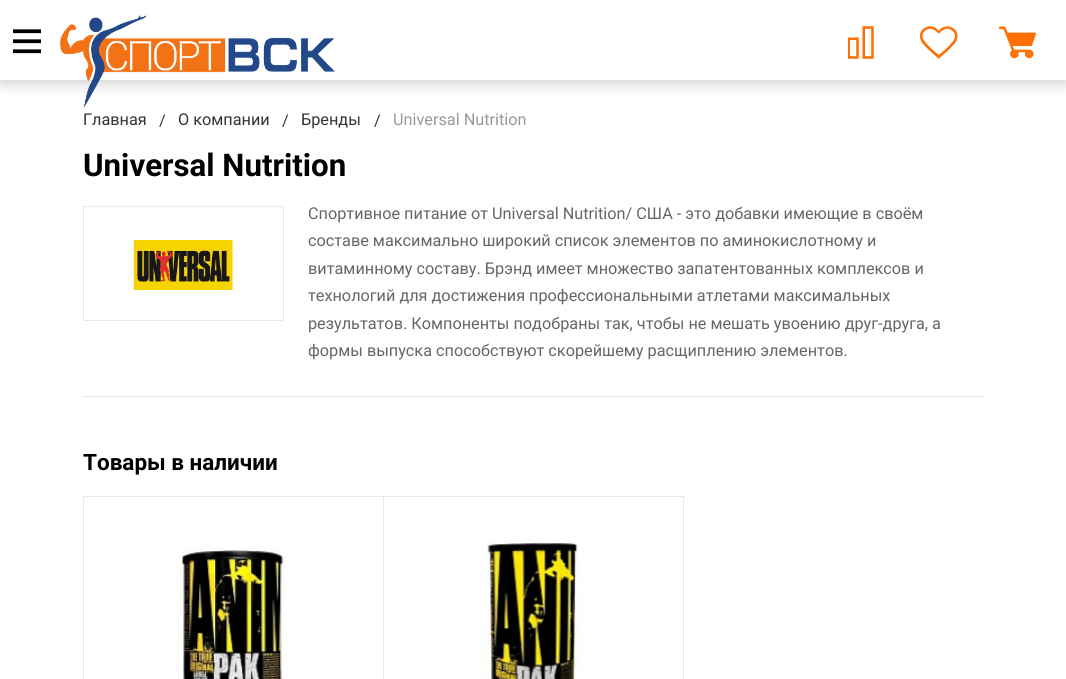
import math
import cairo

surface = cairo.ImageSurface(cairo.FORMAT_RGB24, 1066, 679)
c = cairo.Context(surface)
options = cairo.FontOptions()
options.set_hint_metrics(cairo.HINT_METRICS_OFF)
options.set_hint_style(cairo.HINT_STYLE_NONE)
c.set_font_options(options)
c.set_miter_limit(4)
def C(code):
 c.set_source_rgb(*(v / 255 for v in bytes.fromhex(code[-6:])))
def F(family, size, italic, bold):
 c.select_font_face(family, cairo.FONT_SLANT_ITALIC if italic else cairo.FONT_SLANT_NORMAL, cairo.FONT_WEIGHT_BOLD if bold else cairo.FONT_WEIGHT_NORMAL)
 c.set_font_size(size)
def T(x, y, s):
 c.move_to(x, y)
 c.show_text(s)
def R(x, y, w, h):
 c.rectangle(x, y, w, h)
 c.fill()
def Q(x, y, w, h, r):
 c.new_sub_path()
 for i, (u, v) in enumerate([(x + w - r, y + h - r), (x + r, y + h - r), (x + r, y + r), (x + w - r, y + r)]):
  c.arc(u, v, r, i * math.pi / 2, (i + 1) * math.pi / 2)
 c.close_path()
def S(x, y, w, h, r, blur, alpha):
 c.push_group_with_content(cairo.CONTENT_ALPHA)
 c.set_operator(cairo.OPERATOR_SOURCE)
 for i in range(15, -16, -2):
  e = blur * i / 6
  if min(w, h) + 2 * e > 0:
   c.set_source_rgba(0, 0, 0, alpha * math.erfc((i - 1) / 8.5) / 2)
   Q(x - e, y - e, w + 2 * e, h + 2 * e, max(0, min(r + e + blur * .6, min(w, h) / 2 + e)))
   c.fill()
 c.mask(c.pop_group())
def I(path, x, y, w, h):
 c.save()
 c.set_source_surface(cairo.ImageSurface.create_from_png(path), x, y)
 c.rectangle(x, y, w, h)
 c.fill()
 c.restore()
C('ffffff')
c.paint()
C('050505')
S(0,0,1066,78,0,9.5,.15)
S(0,0,1066,80,0,9.5,.15)
C('ffffff')
R(0,0,1066,80)
I('1.png',13,29,28,25)
I('2.png',60,15,275,93)
I('3.png',848,26,26,33)
I('4.png',920,26,38,33)
I('5.png',999,26,37,33)
F('Roboto',16.25,0,0)
C('333333')
T(83,125,'Главная')
T(159,126,'/')
T(178,125,'О компании')
T(282,126,'/')
T(301,125,'Бренды')
T(374,126,'/')
C('999999')
T(393,125,'Universal Nutrition')
F('Roboto',31.25,0,1)
C('000000')
T(83,176,'Universal Nutrition')
C('e9e9e9')
R(83,396,901,1)
c.rectangle(83.5,206.5,200,114)
c.set_line_width(1)
c.stroke()
I('6.png',133,240,100,50)
F('Roboto',16.25,0,0)
C('666666')
T(308,219,'Спортивное питание от Universal Nutrition/ США - это добавки имеющие в своём')
T(308,246,'составе максимально широкий список элементов по аминокислотному и')
T(308,274,'витаминному составу. Брэнд имеет множество запатентованных комплексов и')
T(308,301,'технологий для достижения профессиональными атлетами максимальных')
T(308,329,'результатов. Компоненты подобраны так, чтобы не мешать увоению друг-друга, а')
T(308,356,'формы выпуска способствуют скорейшему расщиплению элементов.')
F('Roboto',22.5,0,1)
C('000000')
T(83,470,'Товары в наличии')
c.rectangle(83.5,496.5,300,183)
C('e9e9e9')
c.stroke()
I('7.png',177,548,115,131)
c.rectangle(383.5,496.5,300,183)
c.stroke()
I('8.png',479,541,107,138)
surface.write_to_png('o.png')
